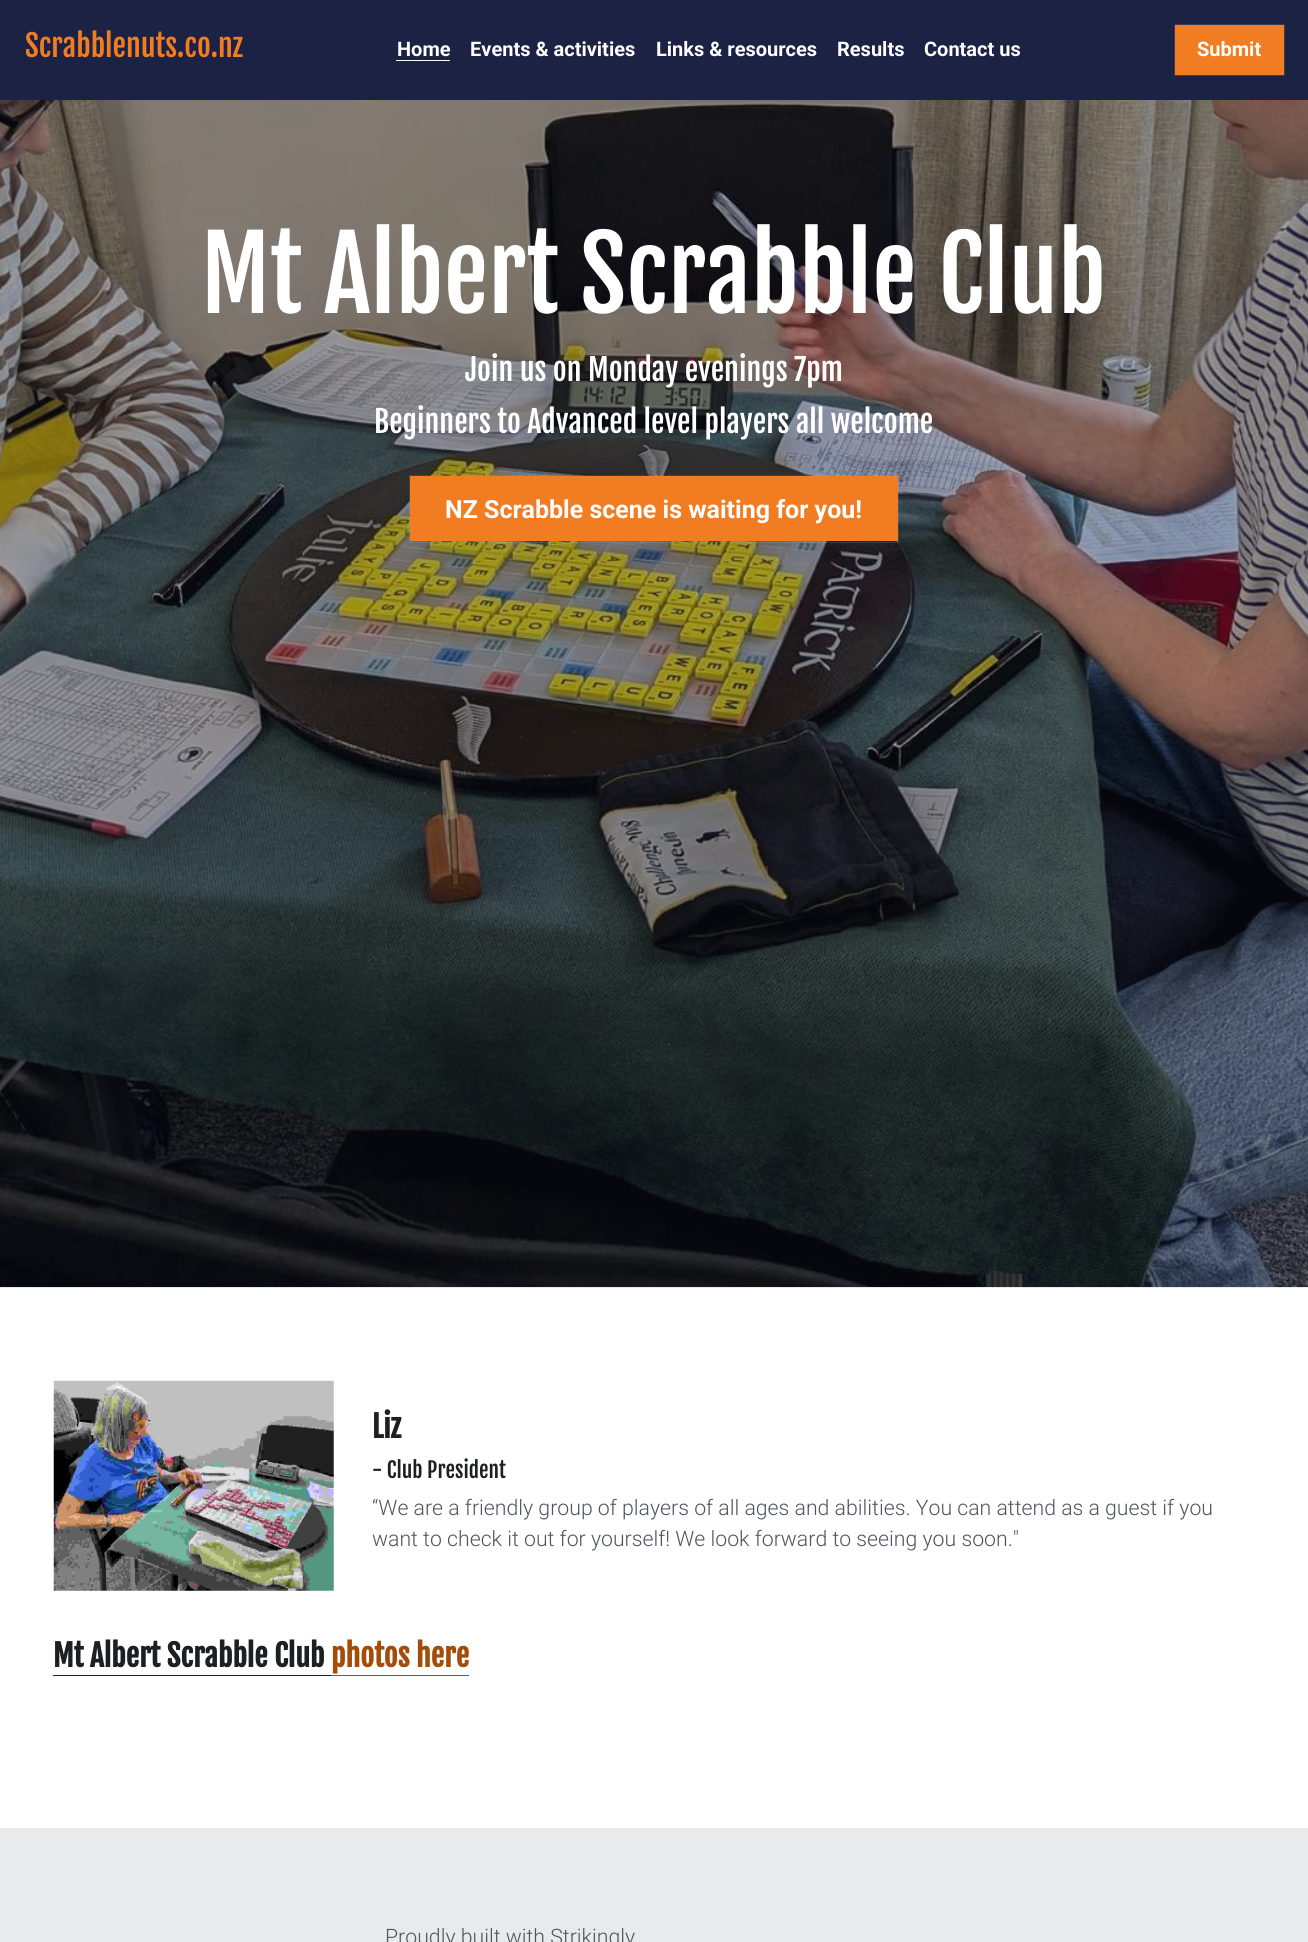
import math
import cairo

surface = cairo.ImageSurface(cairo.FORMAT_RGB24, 1308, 1942)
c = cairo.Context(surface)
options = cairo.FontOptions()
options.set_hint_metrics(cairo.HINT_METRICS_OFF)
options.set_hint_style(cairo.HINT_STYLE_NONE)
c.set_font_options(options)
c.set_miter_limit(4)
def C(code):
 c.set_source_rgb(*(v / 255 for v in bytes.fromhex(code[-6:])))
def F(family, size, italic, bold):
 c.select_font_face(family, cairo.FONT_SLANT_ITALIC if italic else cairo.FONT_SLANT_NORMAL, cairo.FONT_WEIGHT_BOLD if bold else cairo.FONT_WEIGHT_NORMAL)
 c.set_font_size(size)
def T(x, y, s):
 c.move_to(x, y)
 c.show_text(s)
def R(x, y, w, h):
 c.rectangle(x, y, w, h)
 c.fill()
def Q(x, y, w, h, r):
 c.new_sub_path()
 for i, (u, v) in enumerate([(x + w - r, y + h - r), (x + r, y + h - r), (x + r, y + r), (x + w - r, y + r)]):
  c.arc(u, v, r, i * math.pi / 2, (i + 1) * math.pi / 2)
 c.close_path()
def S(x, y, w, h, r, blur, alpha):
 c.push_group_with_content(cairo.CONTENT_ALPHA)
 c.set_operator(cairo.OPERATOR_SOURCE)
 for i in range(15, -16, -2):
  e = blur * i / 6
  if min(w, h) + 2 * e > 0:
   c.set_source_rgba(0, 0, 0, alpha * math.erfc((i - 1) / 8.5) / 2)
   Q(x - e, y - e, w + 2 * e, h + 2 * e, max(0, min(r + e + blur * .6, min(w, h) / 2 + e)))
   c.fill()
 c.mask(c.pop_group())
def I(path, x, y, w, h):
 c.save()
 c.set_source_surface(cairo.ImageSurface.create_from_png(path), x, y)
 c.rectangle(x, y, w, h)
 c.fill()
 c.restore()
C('ffffff')
c.paint()
C('1b2243')
R(0,0,1308,100)
F('Fjalla One',30,0,0)
C('f27c21')
T(25,57,'Scrabblenuts.co.nz')
C('ffffff')
R(396,60,54,1)
F('Roboto',20,0,1)
T(397,56,'Home')
T(470,56,'Events & activities')
T(656,56,'Links & resources')
T(837,56,'Results')
T(924,56,'Contact us')
C('ffffff')
S(1175,25,109,50,0,.5,.5)
C('f27c22')
R(1175,25,109,50)
C('ffffff')
T(1197,56,'Submit')
C('e8eaec')
R(0,1287,1308,1)
I('1.png',0,100,1308,1187)
F('Fjalla One',100,0,0)
C('ffffff')
T(201,313,'Mt Albert Scrabble Club')
F('Fjalla One',30,0,0)
T(465,381,'Join us on Monday evenings 7pm')
T(374,433,'Beginners to Advanced level players all welcome')
C('f27c22')
R(410,476,488,65)
c.rectangle(409.5,475.5,489,67)
c.set_source_rgba(1,1,1,0.1)
c.set_line_width(1)
c.stroke()
F('Roboto',25,0,1)
C('ffffff')
T(445,518,'NZ Scrabble scene is waiting for you!')
I('2.png',53,1380,281,211)
F('Fjalla One',30,0,1)
C('1d2023')
T(372,1438,'Liz')
F('Fjalla One',21.25,0,0)
T(372,1478,'- Club President')
F('Roboto Light',21.25,0,0)
C('50555c')
T(372,1515,'“We are a friendly group of players of all ages and abilities. You can attend as a guest if you')
T(372,1546,'want to check it out for yourself! We look forward to seeing you soon."')
F('Fjalla One',30,0,1)
C('1d2023')
T(53,1667,'Mt Albert Scrabble Club')
R(53,1675,278,1)
C('a44c0a')
T(331,1667,'photos here')
R(331,1675,138,1)
C('e8eaec')
R(0,1828,1308,114)
F('Roboto Light',21.25,0,0)
C('50555c')
T(385,1944,'Proudly built with Strikingly')
surface.write_to_png('o.png')
